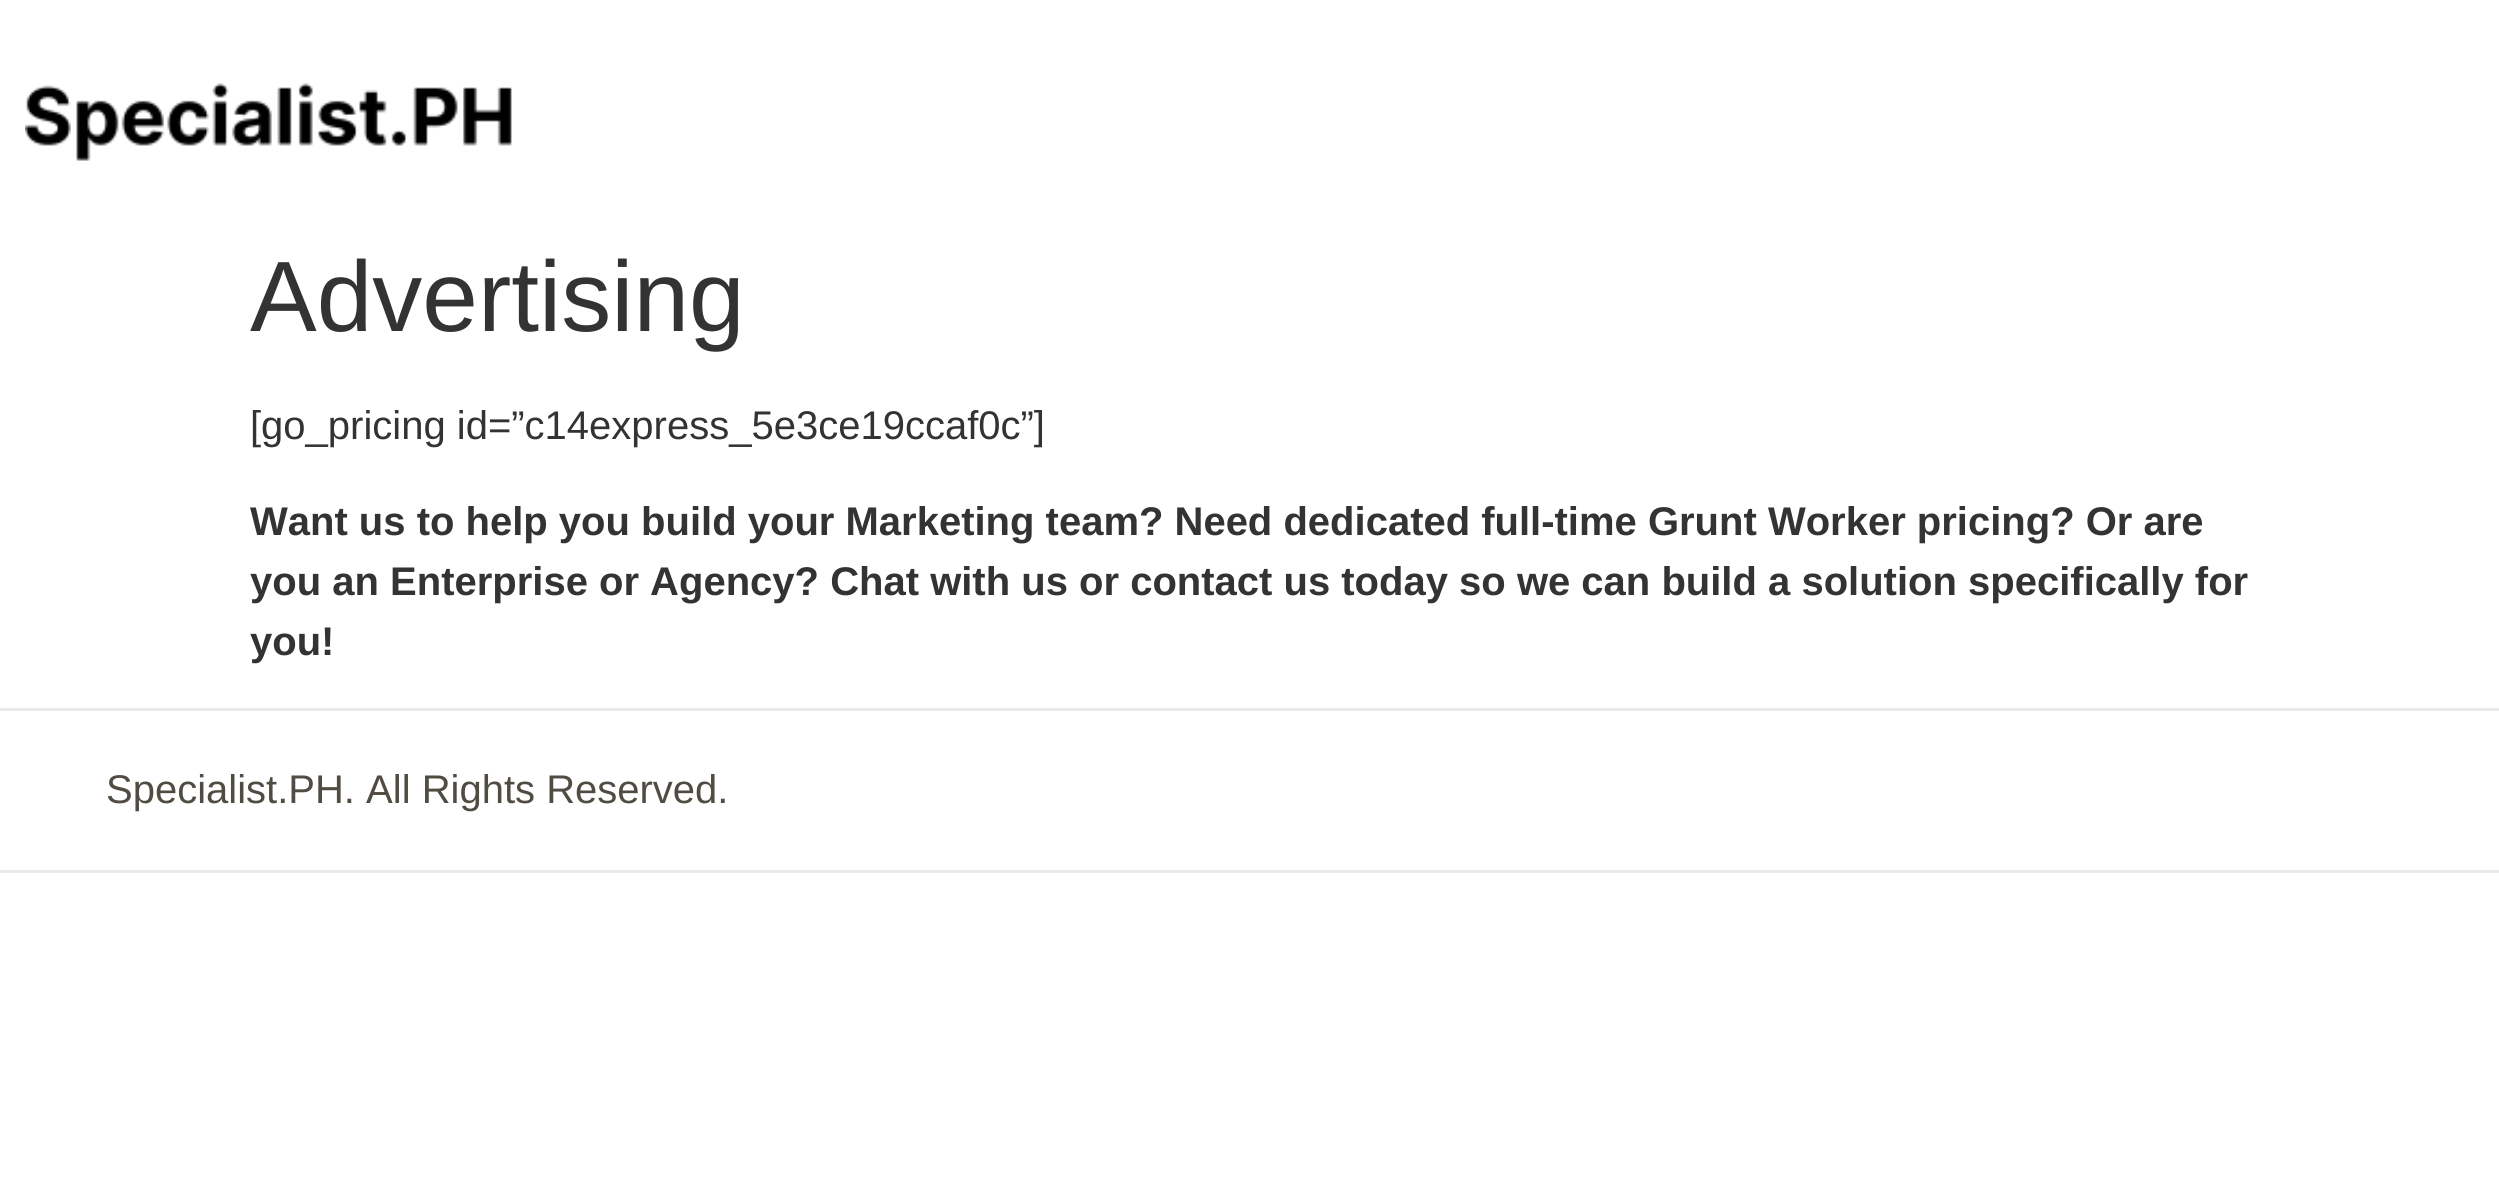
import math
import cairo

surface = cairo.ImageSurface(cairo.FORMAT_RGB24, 2499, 1202)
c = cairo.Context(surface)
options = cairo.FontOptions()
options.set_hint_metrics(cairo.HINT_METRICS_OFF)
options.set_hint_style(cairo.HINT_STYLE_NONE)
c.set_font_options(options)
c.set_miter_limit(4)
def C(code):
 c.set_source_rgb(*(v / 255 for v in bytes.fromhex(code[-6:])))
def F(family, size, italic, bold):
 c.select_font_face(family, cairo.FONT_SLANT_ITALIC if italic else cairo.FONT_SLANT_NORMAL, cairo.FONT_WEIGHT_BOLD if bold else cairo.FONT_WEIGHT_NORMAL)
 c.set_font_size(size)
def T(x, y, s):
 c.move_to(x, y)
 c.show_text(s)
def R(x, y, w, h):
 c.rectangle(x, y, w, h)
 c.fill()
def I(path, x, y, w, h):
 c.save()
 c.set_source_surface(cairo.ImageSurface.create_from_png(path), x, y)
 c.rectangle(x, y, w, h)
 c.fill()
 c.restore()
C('ffffff')
c.paint()
I('1.png',25,83,487,78)
F('Liberation Sans',100,0,0)
C('333333')
T(250,331,'Advertising')
F('Liberation Sans',40,0,0)
T(250,439,'[go_pricing id=”c14express_5e3ce19ccaf0c”]')
F('Liberation Sans',40,0,1)
T(250,535,'Want us to help you build your Marketing team? Need dedicated full-time Grunt Worker pricing? Or are')
T(250,595,'you an Enterprise or Agency? Chat with us or contact us today so we can build a solution specifically for')
T(250,655,'you!')
C('eaeaea')
R(0,708,2499,3)
R(0,870,2499,3)
F('Liberation Sans',40,0,0)
C('504c42')
T(106,803,'Specialist.PH. All Rights Reserved.')
surface.write_to_png('o.png')
